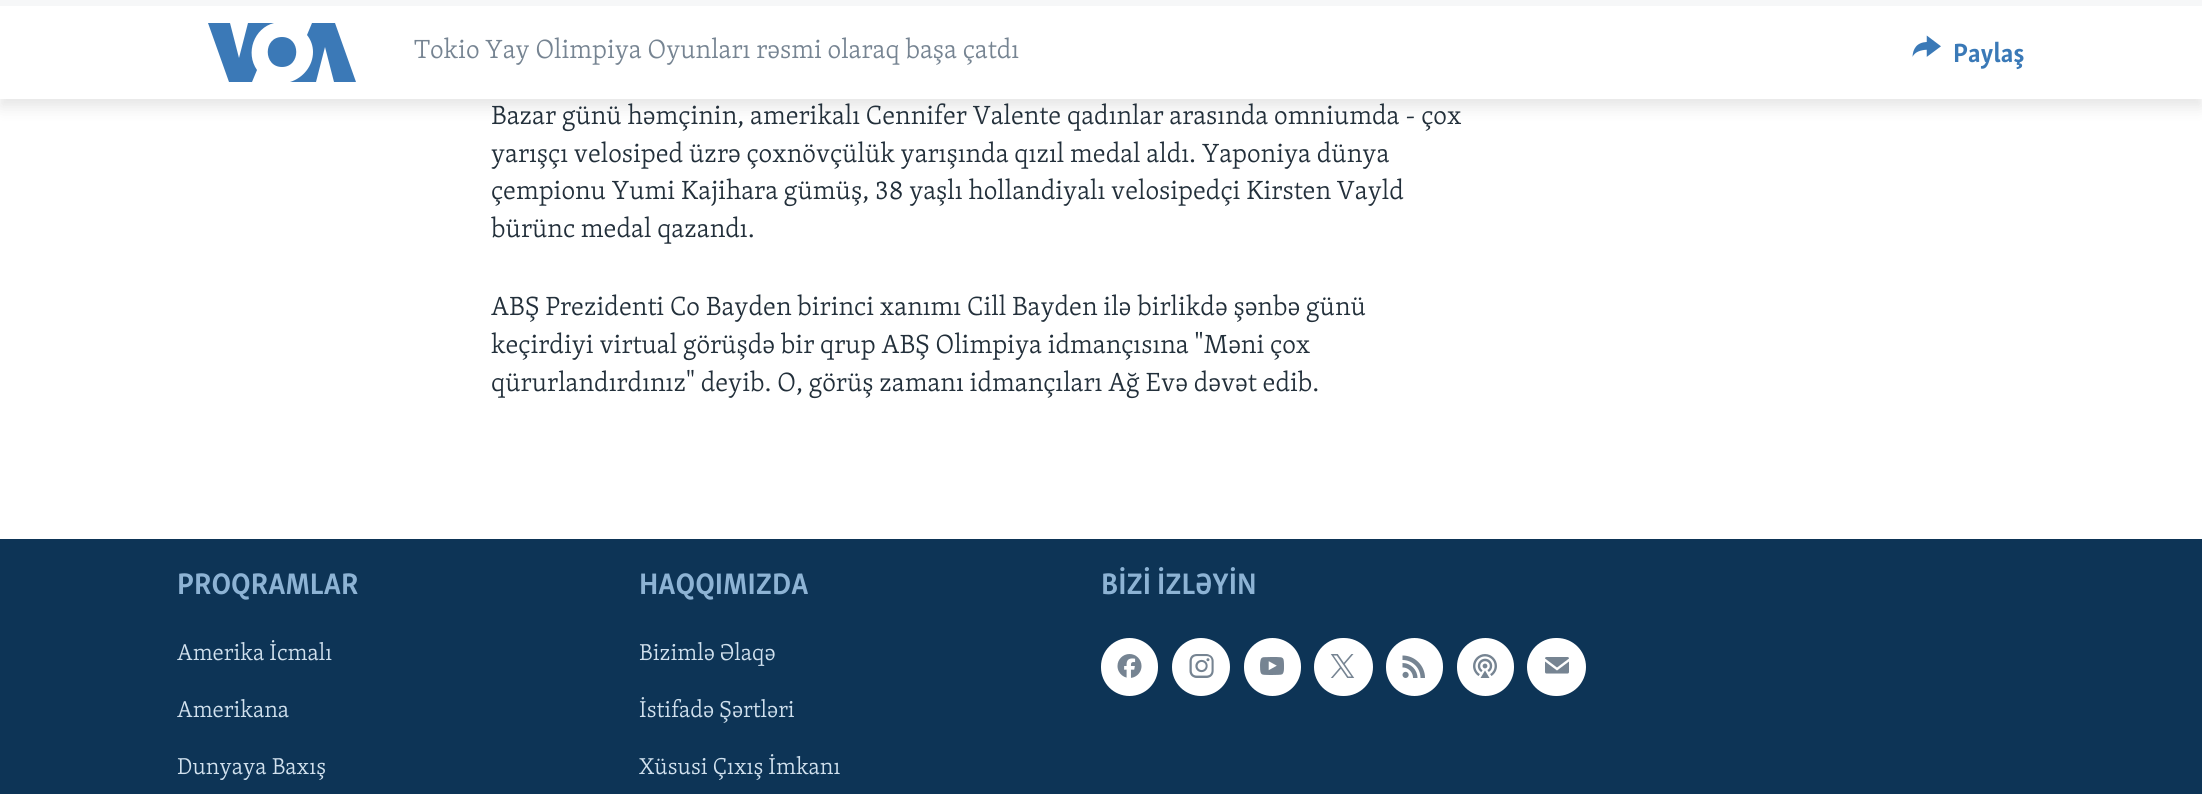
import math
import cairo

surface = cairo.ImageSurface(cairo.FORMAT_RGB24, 2202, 794)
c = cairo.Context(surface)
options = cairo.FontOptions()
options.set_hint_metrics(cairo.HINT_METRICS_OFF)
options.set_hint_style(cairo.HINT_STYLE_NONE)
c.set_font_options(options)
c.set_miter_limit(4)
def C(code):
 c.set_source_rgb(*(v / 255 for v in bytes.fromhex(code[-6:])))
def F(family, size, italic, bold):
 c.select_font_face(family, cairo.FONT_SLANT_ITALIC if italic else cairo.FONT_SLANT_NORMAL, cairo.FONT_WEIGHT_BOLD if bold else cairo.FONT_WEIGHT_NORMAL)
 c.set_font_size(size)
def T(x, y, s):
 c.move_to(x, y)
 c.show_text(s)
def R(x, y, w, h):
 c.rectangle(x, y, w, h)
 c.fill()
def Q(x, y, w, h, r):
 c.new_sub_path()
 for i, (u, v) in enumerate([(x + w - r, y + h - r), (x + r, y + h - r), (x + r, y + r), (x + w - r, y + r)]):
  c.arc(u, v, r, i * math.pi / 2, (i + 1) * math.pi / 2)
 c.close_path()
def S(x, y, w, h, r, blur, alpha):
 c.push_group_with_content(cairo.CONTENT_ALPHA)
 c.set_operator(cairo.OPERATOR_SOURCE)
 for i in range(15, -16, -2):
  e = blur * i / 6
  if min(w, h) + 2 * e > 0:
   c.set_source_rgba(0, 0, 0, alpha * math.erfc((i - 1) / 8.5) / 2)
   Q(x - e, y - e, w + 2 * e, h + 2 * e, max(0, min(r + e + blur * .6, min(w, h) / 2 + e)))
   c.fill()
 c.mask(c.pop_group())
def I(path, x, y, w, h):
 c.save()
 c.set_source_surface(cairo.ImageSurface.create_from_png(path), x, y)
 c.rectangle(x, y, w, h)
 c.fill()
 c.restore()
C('ffffff')
c.paint()
C('000000')
S(0,8,2202,99,0,7.5,.1)
C('ffffff')
R(0,6,2202,93)
C('f6f7f8')
R(0,0,2202,6)
C('3b79b7')
c.new_path()
c.move_to(257,70)
c.line_to(252,82)
c.line_to(229,82)
c.line_to(208,23)
c.line_to(230,23)
c.line_to(239,58)
c.line_to(248,23)
c.line_to(274,23)
c.curve_to(254,28,245,53,257,70)
c.close_path()
c.move_to(282,37)
c.curve_to(263,37,263,67,282,67)
c.curve_to(301,67,301,37,282,37)
c.close_path()
c.move_to(313,52)
c.curve_to(313,66,303,78,290,82)
c.line_to(316,82)
c.line_to(325,47)
c.line_to(334,82)
c.line_to(356,82)
c.line_to(335,23)
c.line_to(312,23)
c.line_to(307,35)
c.curve_to(311,40,313,46,313,52)
c.close_path()
c.fill()
F('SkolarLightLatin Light',27,0,0)
C('768492')
T(414,58,'Tokio Yay Olimpiya Oyunları rəsmi olaraq başa çatdı')
I('1.png',1912,35,29,22)
F('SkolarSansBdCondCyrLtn',27,0,1)
C('3a79b7')
T(1953,62,'Paylaş')
F('SkolarLightLatin Light',27,0,0)
C('222f3a')
T(491,124,'Bazar günü həmçinin, amerikalı Cennifer Valente qadınlar arasında omniumda - çox')
T(491,162,'yarışçı velosiped üzrə çoxnövçülük yarışında qızıl medal aldı. Yaponiya dünya')
T(491,199,'çempionu Yumi Kajihara gümüş, 38 yaşlı hollandiyalı velosipedçi Kirsten Vayld')
T(491,237,'bürünc medal qazandı.')
T(491,315,'ABŞ Prezidenti Co Bayden birinci xanımı Cill Bayden ilə birlikdə şənbə günü')
T(491,353,'keçirdiyi virtual görüşdə bir qrup ABŞ Olimpiya idmançısına "Məni çox')
T(491,391,'qürurlandırdınız" deyib. O, görüş zamanı idmançıları Ağ Evə dəvət edib.')
C('0d3456')
R(0,539,2202,255)
F('SkolarSansBdCondCyrLtn',30.5,0,1)
C('8db3d4')
T(177,594,'PROQRAMLAR')
F('SkolarLightLatin Light',23.6,0,0)
C('d1e1ee')
T(177,660,'Amerika İcmalı')
T(177,717,'Amerikana')
T(177,774,'Dunyaya Baxış')
F('SkolarSansBdCondCyrLtn',30.5,0,1)
C('8db3d4')
T(639,594,'HAQQIMIZDA')
F('SkolarLightLatin Light',23.6,0,0)
C('d1e1ee')
T(639,660,'Bizimlə Əlaqə')
T(639,717,'İstifadə Şərtləri')
T(639,774,'Xüsusi Çıxış İmkanı')
F('SkolarSansBdCondCyrLtn',30.5,0,1)
C('8db3d4')
T(1101,594,'BİZİ İZLƏYİN')
C('ffffff')
Q(1101,638,57,58,28.5)
c.fill()
I('2.png',1117,654,25,24)
c.arc(1201,667,29,0,2 * math.pi)
c.fill()
I('3.png',1189,654,25,24)
Q(1244,638,57,58,28.5)
c.fill()
I('4.png',1260,657,24,18)
Q(1314,638,59,58,29)
c.fill()
I('5.png',1330,654,25,24)
Q(1386,638,57,58,28.5)
c.fill()
I('6.png',1402,655,23,23)
Q(1457,638,57,58,28.5)
c.fill()
I('7.png',1473,654,24,24)
Q(1527,638,59,58,29)
c.fill()
I('8.png',1545,657,24,17)
surface.write_to_png('o.png')
